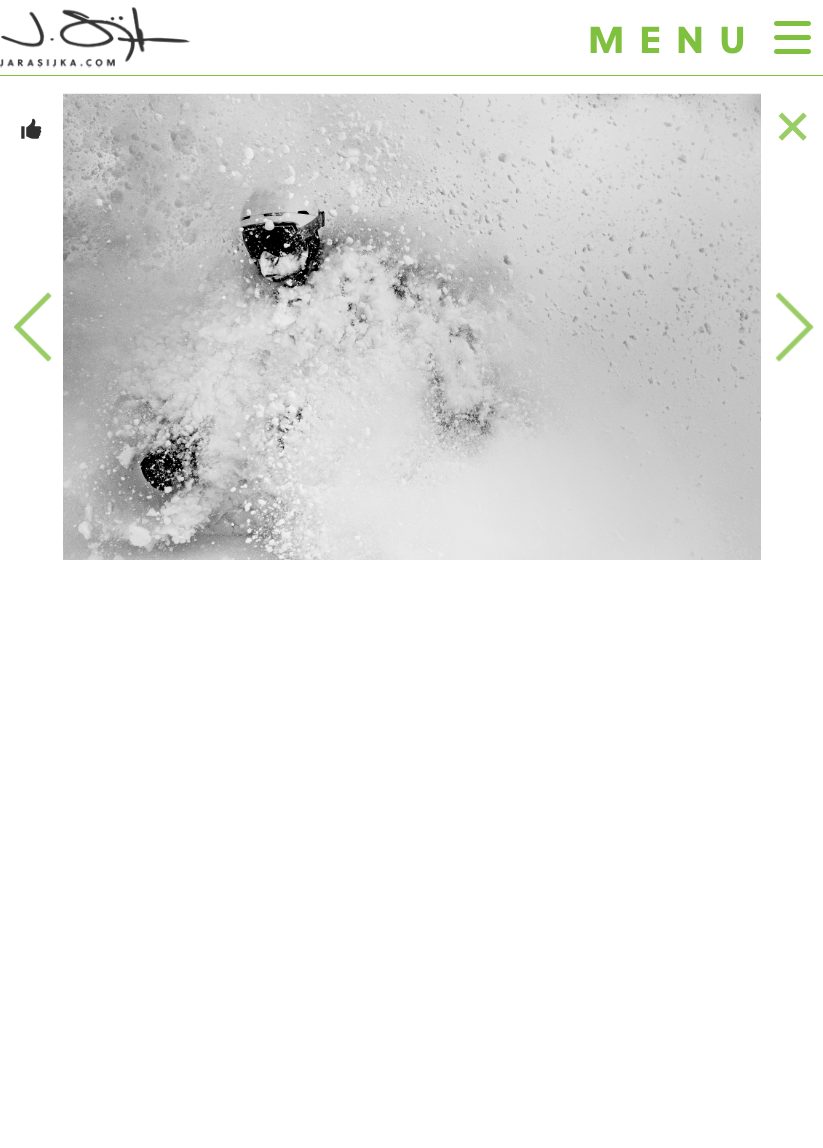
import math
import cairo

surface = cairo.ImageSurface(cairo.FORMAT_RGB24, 823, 1148)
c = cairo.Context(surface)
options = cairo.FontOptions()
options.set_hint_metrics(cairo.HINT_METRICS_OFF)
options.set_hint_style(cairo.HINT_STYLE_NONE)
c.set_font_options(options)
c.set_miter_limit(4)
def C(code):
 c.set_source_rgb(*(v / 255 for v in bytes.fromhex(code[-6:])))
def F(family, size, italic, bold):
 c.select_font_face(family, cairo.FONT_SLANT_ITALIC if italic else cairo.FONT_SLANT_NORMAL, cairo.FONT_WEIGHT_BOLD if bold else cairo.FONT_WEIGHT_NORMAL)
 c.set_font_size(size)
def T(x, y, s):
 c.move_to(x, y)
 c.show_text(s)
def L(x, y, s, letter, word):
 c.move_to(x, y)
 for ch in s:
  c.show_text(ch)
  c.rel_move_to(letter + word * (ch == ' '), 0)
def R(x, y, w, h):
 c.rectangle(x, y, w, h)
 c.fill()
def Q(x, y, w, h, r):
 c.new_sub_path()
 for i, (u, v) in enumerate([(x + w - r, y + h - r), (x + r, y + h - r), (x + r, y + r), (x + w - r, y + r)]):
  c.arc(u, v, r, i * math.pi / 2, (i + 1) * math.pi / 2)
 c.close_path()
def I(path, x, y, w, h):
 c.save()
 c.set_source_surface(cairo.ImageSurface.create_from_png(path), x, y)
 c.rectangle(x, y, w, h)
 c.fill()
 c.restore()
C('ffffff')
c.paint()
C('80c03f')
R(0,75,823,1)
I('1.png',0,7,190,61)
F('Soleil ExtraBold',37.5,0,0)
L(588,53,'MENU',15,0)
Q(774,21,37,5,2.5)
c.fill()
Q(774,35,37,5,2.5)
c.fill()
Q(774,49,37,5,2.5)
c.fill()
I('2.png',21,118,21,21)
I('3.png',62,93,700,467)
C('ffffff')
R(62,94,1,466)
I('4.png',14,292,38,70)
R(761,94,1,466)
I('5.png',775,292,39,70)
F('DejaVu Sans Mono',62,0,0)
C('99cd65')
T(774,146,'×')
surface.write_to_png('o.png')
